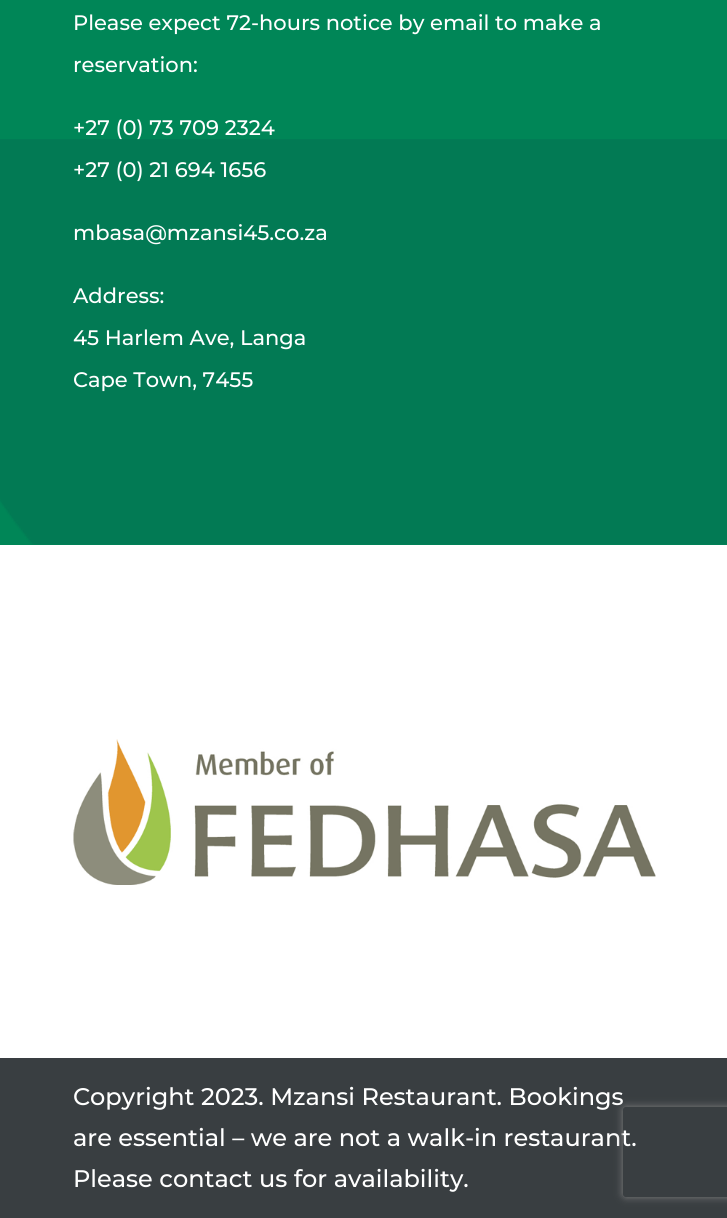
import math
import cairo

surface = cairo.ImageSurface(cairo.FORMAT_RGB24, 727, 1218)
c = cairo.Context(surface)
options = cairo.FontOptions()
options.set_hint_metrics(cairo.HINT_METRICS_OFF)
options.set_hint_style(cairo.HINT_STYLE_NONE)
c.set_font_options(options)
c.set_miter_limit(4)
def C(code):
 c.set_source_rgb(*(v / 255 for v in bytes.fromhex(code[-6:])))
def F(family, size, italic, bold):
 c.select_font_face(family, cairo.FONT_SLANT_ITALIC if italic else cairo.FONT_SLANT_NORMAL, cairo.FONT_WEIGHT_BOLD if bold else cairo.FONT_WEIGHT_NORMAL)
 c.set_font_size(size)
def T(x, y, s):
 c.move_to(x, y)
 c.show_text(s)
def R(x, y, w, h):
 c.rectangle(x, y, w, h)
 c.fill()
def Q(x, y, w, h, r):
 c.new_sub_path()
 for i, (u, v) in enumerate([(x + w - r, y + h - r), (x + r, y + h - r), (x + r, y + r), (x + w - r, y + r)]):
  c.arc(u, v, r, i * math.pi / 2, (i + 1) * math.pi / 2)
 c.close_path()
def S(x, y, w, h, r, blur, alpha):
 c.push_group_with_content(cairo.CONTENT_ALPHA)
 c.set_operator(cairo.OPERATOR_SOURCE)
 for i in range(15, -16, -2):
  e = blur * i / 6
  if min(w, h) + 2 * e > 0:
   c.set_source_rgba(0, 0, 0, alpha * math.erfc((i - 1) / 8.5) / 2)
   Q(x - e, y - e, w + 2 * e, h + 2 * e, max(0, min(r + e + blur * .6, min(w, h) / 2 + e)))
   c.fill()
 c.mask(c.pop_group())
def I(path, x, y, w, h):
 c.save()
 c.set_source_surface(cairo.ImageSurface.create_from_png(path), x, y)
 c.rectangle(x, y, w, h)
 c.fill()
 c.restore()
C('ffffff')
c.paint()
C('008657')
R(0,0,727,545)
F('Montserrat Medium',21,0,0)
C('ffffff')
T(73,30,'Please expect 72-hours notice by email to make a')
T(73,72,'reservation:')
I('1.png',0,139,727,406)
T(73,135,'+27 (0) 73 709 2324')
T(73,177,'+27 (0) 21 694 1656')
T(73,240,'mbasa@mzansi45.co.za')
T(73,303,'Address:')
T(73,345,'45 Harlem Ave, Langa')
T(73,387,'Cape Town, 7455')
I('2.png',73,739,583,146)
C('393e41')
R(0,1058,727,160)
F('Montserrat Medium',24,0,0)
C('ffffff')
T(73,1105,'Copyright 2023. Mzansi Restaurant. Bookings')
T(73,1146,'are essential – we are not a walk-in restaurant.')
T(73,1187,'Please contact us for availability.')
c.save()
c.set_fill_rule(cairo.FILL_RULE_EVEN_ODD)
c.new_path()
c.move_to(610,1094)
c.line_to(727,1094)
c.line_to(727,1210)
c.line_to(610,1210)
c.close_path()
c.move_to(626,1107)
c.line_to(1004,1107)
c.curve_to(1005.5,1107,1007,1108.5,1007,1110)
c.line_to(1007,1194)
c.curve_to(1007,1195.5,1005.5,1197,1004,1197)
c.line_to(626,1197)
c.curve_to(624.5,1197,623,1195.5,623,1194)
c.line_to(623,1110)
c.curve_to(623,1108.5,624.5,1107,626,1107)
c.close_path()
c.clip()
C('808080')
S(623,1107,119,90,3,4,1)
c.restore()
surface.write_to_png('o.png')
